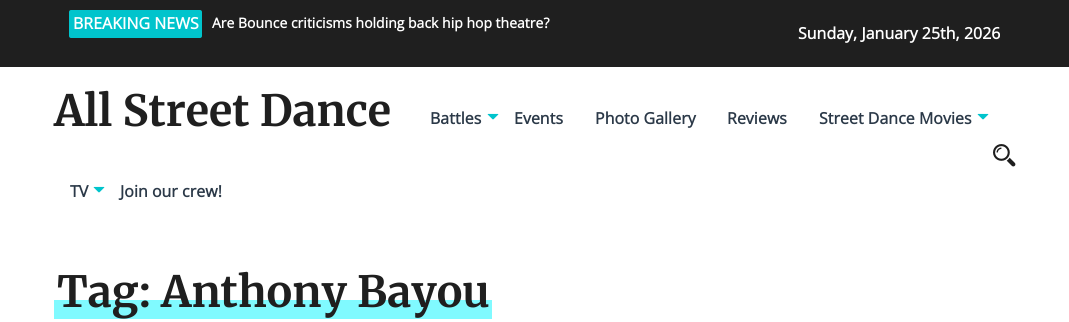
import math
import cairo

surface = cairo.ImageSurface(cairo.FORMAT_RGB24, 1069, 322)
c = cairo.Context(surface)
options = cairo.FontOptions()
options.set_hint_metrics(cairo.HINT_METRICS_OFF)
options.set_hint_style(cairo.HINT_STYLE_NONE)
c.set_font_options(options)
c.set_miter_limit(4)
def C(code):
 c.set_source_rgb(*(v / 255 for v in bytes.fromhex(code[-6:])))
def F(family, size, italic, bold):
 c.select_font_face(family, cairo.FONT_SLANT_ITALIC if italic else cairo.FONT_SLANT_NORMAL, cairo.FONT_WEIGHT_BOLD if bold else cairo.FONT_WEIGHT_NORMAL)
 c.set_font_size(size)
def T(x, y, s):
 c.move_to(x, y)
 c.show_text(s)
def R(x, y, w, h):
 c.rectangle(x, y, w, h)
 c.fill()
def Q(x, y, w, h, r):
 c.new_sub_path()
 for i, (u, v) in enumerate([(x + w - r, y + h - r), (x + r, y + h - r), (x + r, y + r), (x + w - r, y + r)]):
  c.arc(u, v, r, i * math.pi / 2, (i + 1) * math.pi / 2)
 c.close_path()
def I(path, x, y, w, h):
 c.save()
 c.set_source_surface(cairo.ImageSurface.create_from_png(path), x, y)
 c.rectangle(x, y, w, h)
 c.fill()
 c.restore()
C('ffffff')
c.paint()
C('1f1f1f')
R(0,0,1069,67)
C('00c4cc')
Q(69,10,133,28,2)
c.fill()
F('Open Sans',16,0,1)
C('ffffff')
T(73,29,'BREAKING NEWS')
F('Open Sans',14,0,1)
T(212,28,'Are Bounce criticisms holding back hip hop theatre?')
F('Open Sans',16,0,1)
T(798,39,'Sunday, January 25th, 2026')
F('Merriweather',43,0,1)
C('1f1f1f')
T(54,126,'All Street Dance')
F('Open Sans',16,0,1)
C('2b3948')
T(430,124,'Battles')
I('1.png',487,113,12,7)
T(514,124,'Events')
T(595,124,'Photo Gallery')
T(727,124,'Reviews')
T(819,124,'Street Dance Movies')
I('1.png',977,113,12,7)
T(70,197,'TV')
I('1.png',93,186,12,7)
T(120,197,'Join our crew!')
I('2.png',993,144,23,23)
C('80faff')
R(54,300,438,19)
F('Merriweather',43,0,1)
C('1f1f1f')
T(57,307,'Tag: Anthony Bayou')
surface.write_to_png('o.png')
